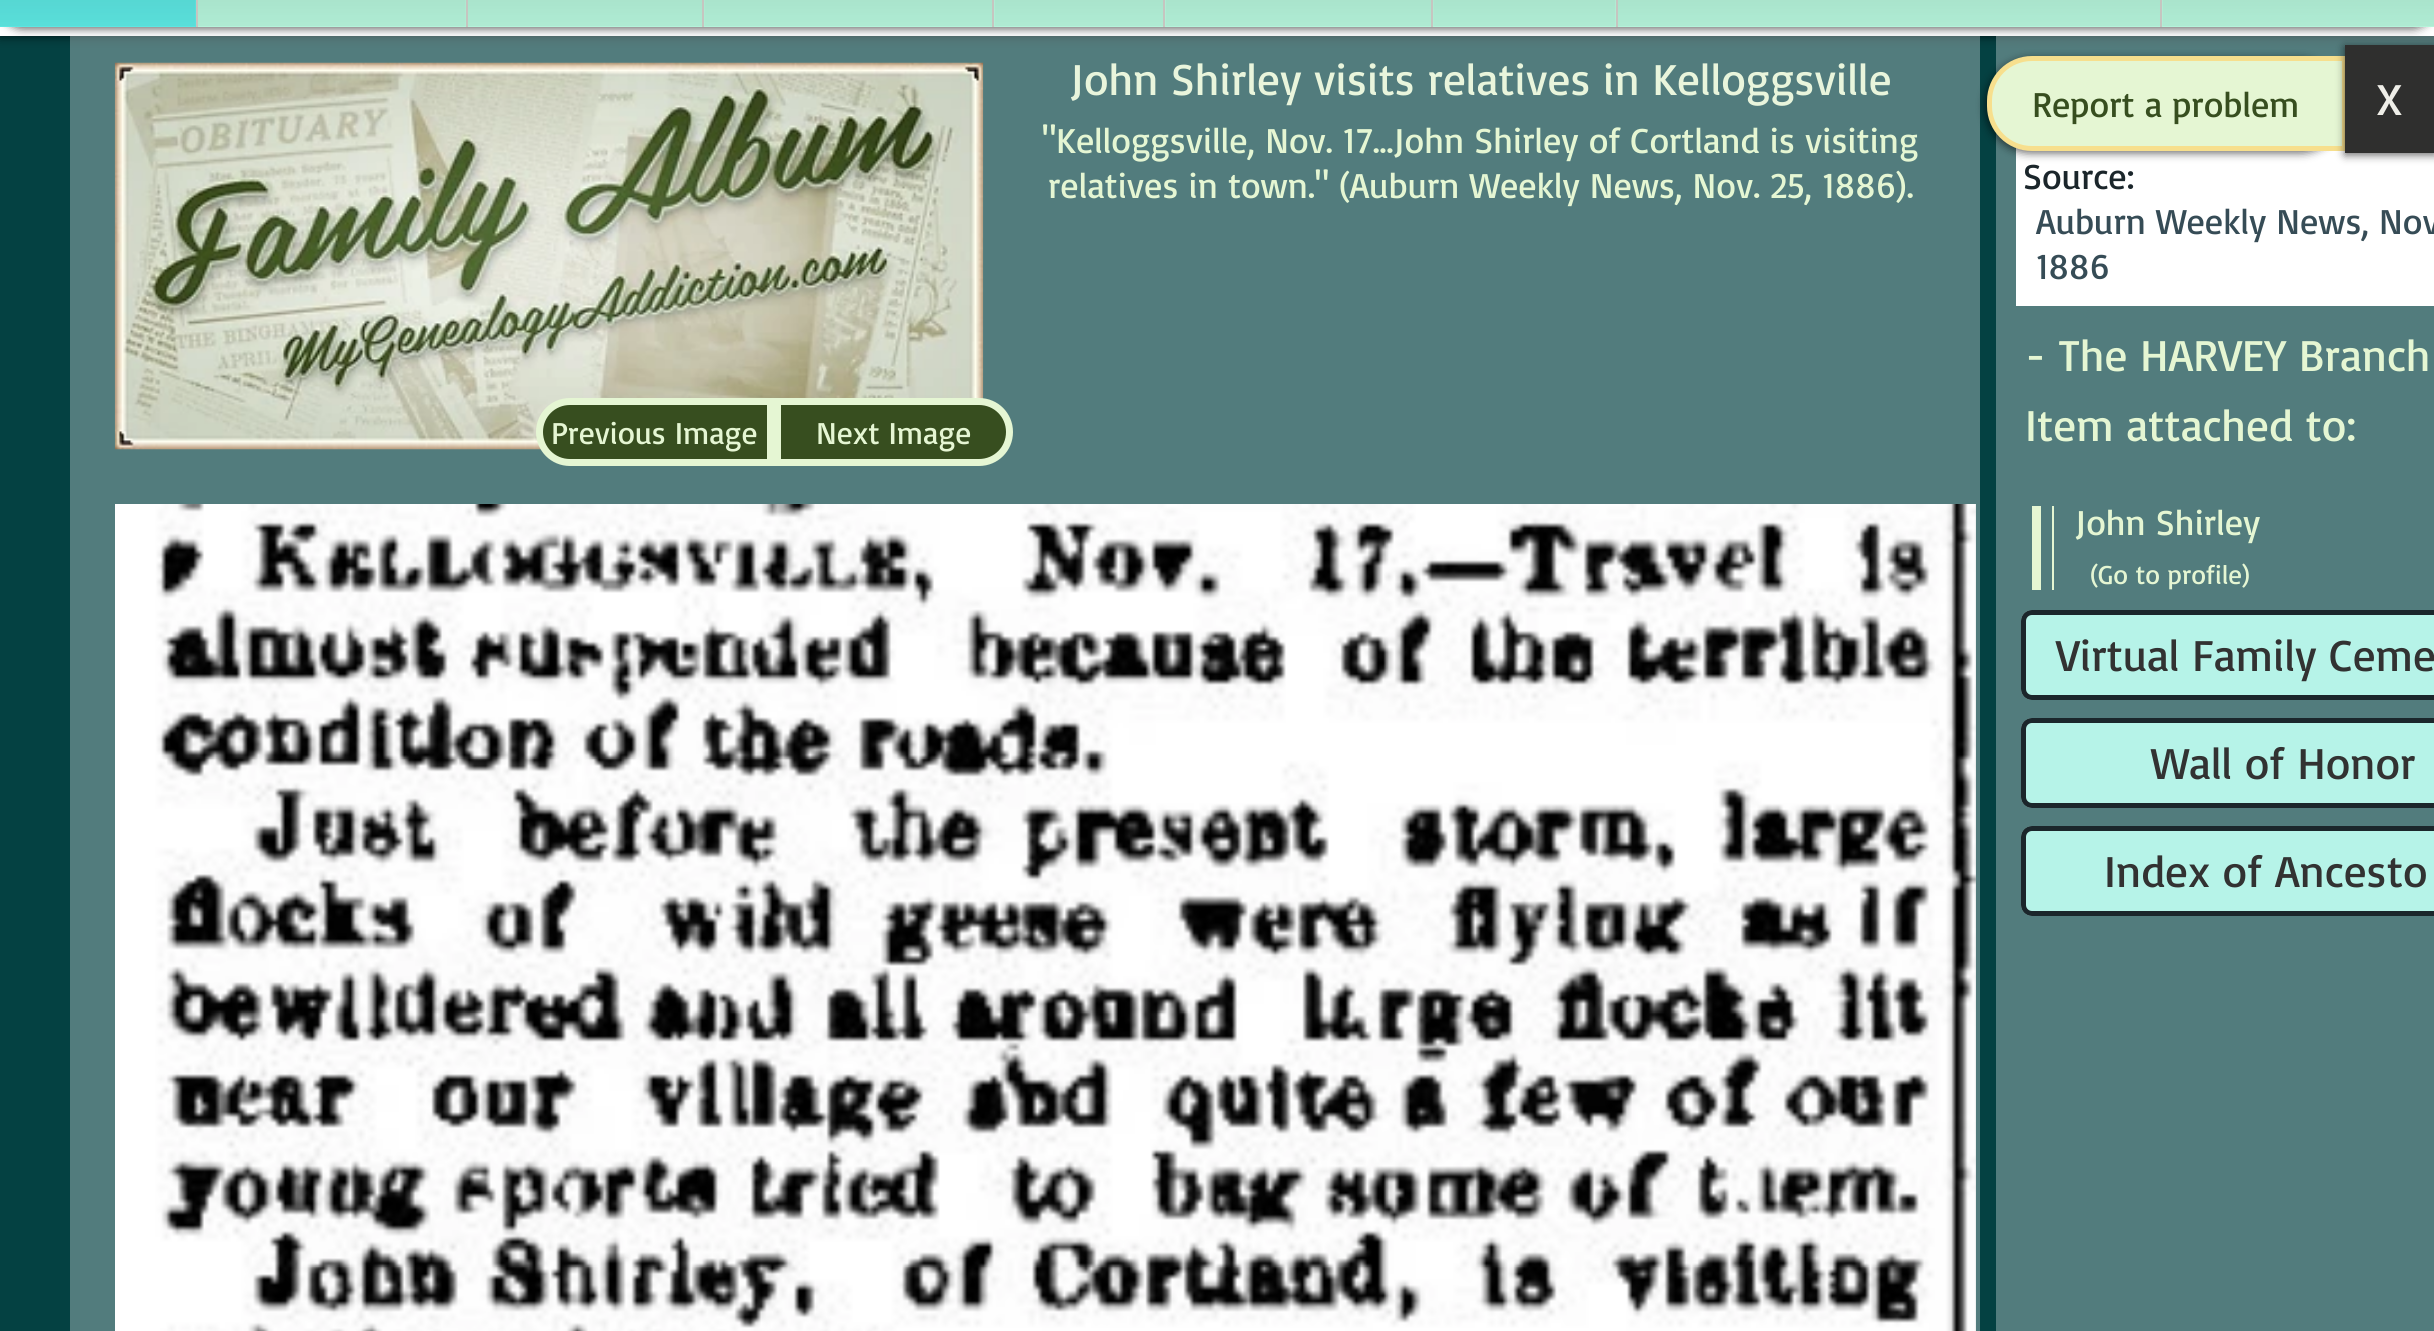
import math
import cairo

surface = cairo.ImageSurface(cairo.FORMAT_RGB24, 2434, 1331)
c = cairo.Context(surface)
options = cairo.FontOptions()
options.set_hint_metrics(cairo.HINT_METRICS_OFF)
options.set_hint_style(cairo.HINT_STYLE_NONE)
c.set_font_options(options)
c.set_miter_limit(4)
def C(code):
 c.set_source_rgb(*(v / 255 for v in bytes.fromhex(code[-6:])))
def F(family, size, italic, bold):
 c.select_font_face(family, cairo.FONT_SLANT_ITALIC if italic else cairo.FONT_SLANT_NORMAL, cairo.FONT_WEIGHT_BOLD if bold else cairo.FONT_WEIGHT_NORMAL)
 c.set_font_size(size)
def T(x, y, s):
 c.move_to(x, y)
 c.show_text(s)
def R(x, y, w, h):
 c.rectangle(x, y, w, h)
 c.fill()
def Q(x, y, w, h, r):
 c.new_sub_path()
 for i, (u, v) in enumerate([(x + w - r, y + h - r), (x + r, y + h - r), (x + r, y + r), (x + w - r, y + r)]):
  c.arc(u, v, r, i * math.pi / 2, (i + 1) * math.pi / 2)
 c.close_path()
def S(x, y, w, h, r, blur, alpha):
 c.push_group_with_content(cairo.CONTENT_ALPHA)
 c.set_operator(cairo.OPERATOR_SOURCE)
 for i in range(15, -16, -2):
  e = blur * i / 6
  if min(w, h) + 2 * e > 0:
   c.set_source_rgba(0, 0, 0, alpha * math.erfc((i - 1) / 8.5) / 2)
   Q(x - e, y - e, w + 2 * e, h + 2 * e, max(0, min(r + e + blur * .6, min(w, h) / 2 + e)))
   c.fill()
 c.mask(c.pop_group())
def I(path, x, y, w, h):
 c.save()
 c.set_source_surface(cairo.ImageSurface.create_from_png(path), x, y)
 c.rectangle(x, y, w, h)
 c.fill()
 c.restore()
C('044142')
c.paint()
C('000000')
S(0,-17,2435,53,0,5.5,.7)
C('ffffff')
R(0,27,2434,9)
C('000000')
S(0,-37,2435,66,23,4.5,.6)
C('5ce6e1')
R(0,0,196,27)
I('1.png',0,0,196,26)
C('b5f3da')
R(198,0,268,27)
C('c6c5c0')
R(196,0,2,27)
I('2.png',198,0,268,26)
C('b5f3da')
R(468,0,234,27)
C('c6c5c0')
R(466,0,2,27)
I('3.png',468,0,234,26)
C('b5f3da')
R(704,0,288,27)
C('c6c5c0')
R(702,0,2,27)
I('4.png',704,0,288,26)
C('b5f3da')
R(994,0,169,27)
C('c6c5c0')
R(992,0,2,27)
I('5.png',994,0,169,26)
C('b5f3da')
R(1165,0,266,27)
C('c6c5c0')
R(1163,0,2,27)
I('6.png',1165,0,266,26)
C('b5f3da')
R(1433,0,183,27)
C('c6c5c0')
R(1431,0,2,27)
I('7.png',1433,0,183,26)
C('b5f3da')
R(1618,0,542,27)
C('c6c5c0')
R(1616,0,2,27)
I('8.png',1618,0,542,26)
C('b5f3da')
R(2162,0,272,27)
C('c6c5c0')
R(2160,0,2,27)
I('9.png',2162,0,272,26)
c.set_source_rgba(1,1,1,0.31)
R(70,36,1910,1295)
F('Basic',45,0,0)
C('e9f5dc')
T(1070,95,'John Shirley visits relatives in Kelloggsville')
F('Basic',36,0,0)
C('e5f6d3')
T(1042,153,'"Kelloggsville, Nov. 17...John Shirley of Cortland is visiting')
T(1048,198,'relatives in town." (Auburn Weekly News, Nov. 25, 1886).')
I('10.png',114,62,870,388)
C('374e1f')
c.new_path()
c.move_to(570,401.5)
c.line_to(770.5,401.5)
c.line_to(770.5,462.5)
c.line_to(570,462.5)
c.curve_to(553,462.5,539.5,449,539.5,432)
c.curve_to(539.5,415,553,401.5,570,401.5)
c.close_path()
c.fill_preserve()
C('e5f6d3')
c.set_line_width(7)
c.stroke()
F('Basic',31.5,0,0)
T(551,444,'Previous Image')
C('374e1f')
c.new_path()
c.move_to(777.5,401.5)
c.line_to(979,401.5)
c.curve_to(996,401.5,1009.5,415,1009.5,432)
c.curve_to(1009.5,449,996,462.5,979,462.5)
c.line_to(777.5,462.5)
c.close_path()
c.fill_preserve()
C('e5f6d3')
c.stroke()
T(816,444,'Next Image')
I('12.png',1974,504,2,827)
I('11.png',115,504,1861,827)
c.set_source_rgba(1,1,1,0.31)
R(1996,36,438,1295)
C('ffffff')
R(2016,148,418,158)
F('Basic',36,0,0)
C('1b262b')
T(2023,189,'Source:')
C('364c56')
T(2036,234,'Auburn Weekly News, Nov')
T(2036,279,'1886')
F('Basic',45,0,0)
C('e5f6d3')
T(2025,371,'- The HARVEY Branch')
T(2025,441,'Item attached to:')
R(2052,506,2,84)
R(2032,506,9,84)
F('Basic',36,0,0)
T(2075,535,'John Shirley')
F('Basic',27,0,0)
T(2090,584,'(Go to profile)')
C('b6f3e8')
c.new_path()
c.move_to(2032,610)
c.line_to(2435,610)
c.line_to(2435,700)
c.line_to(2032,700)
c.curve_to(2026,700,2021,695,2021,689)
c.line_to(2021,621)
c.curve_to(2021,615,2026,610,2032,610)
c.close_path()
c.fill()
Q(2023.5,612.5,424,85,8.5)
C('1b262b')
c.set_line_width(5)
c.stroke()
F('Basic',45,0,0)
C('323232')
T(2056,671,'Virtual Family Ceme')
C('b6f3e8')
c.new_path()
c.move_to(2032,718)
c.line_to(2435,718)
c.line_to(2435,808)
c.line_to(2032,808)
c.curve_to(2026,808,2021,803,2021,797)
c.line_to(2021,729)
c.curve_to(2021,723,2026,718,2032,718)
c.close_path()
c.fill()
Q(2023.5,720.5,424,85,8.5)
C('1b262b')
c.stroke()
C('323232')
T(2151,779,'Wall of Honor')
C('b6f3e8')
c.new_path()
c.move_to(2032,826)
c.line_to(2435,826)
c.line_to(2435,916)
c.line_to(2032,916)
c.curve_to(2026,916,2021,911,2021,905)
c.line_to(2021,837)
c.curve_to(2021,831,2026,826,2032,826)
c.close_path()
c.fill()
Q(2023.5,828.5,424,85,8.5)
C('1b262b')
c.stroke()
C('323232')
T(2104,887,'Index of Ancesto')
C('000000')
S(1985,59,360,94,45,4.5,.6)
C('e5f6d3')
c.new_path()
c.move_to(2032,58.5)
c.line_to(2344.5,58.5)
c.line_to(2344.5,148.5)
c.line_to(2032,148.5)
c.curve_to(2008.5,148.5,1989.5,129.5,1989.5,106)
c.line_to(1989.5,101)
c.curve_to(1989.5,77.5,2008.5,58.5,2032,58.5)
c.close_path()
c.fill_preserve()
C('f7df8d')
c.stroke()
F('Basic',36,0,0)
C('374e1f')
T(2032,117,'Report a problem')
C('000000')
S(2345,47,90,108,0,4.5,.6)
C('2f2f2e')
R(2345,45,89,108)
F('Basic',45,0,0)
C('efeee8')
T(2377,115,'X')
surface.write_to_png('o.png')
